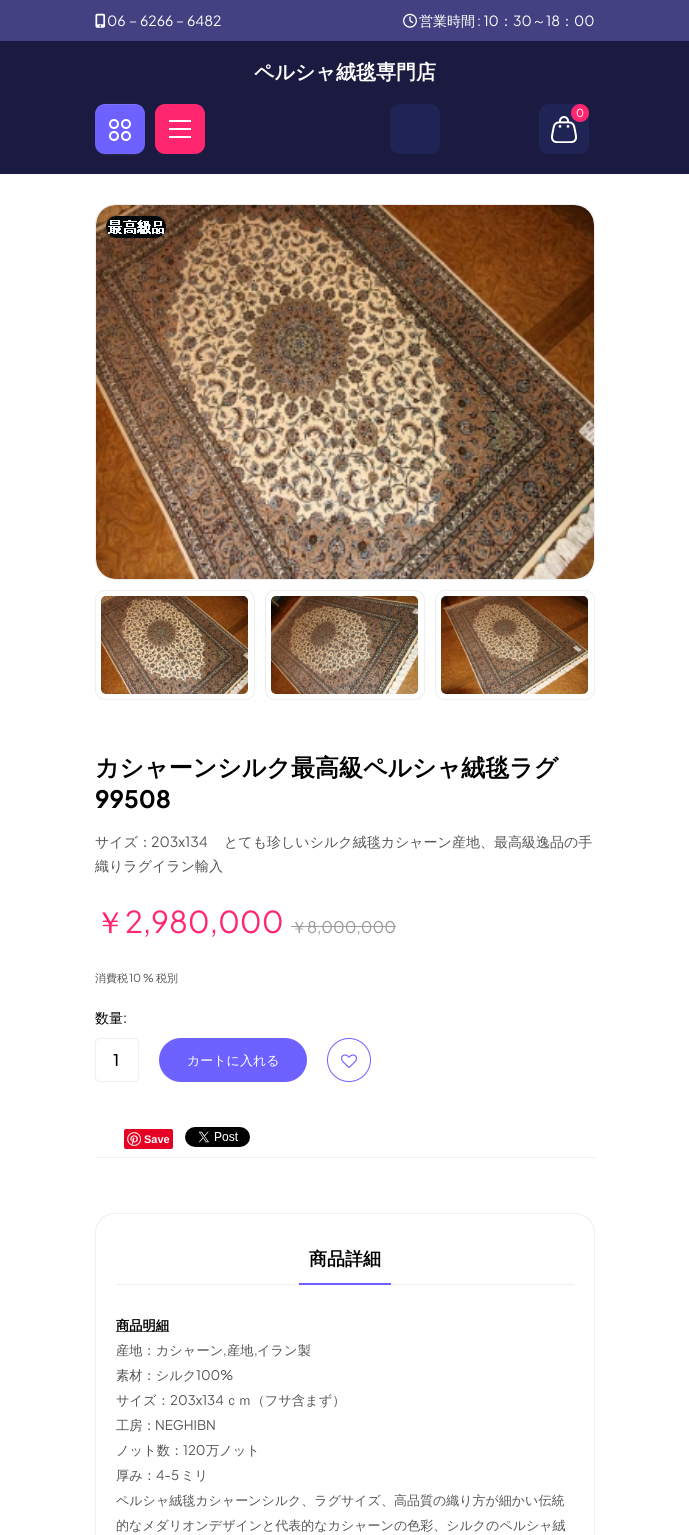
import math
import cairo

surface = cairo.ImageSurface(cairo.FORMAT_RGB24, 689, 1535)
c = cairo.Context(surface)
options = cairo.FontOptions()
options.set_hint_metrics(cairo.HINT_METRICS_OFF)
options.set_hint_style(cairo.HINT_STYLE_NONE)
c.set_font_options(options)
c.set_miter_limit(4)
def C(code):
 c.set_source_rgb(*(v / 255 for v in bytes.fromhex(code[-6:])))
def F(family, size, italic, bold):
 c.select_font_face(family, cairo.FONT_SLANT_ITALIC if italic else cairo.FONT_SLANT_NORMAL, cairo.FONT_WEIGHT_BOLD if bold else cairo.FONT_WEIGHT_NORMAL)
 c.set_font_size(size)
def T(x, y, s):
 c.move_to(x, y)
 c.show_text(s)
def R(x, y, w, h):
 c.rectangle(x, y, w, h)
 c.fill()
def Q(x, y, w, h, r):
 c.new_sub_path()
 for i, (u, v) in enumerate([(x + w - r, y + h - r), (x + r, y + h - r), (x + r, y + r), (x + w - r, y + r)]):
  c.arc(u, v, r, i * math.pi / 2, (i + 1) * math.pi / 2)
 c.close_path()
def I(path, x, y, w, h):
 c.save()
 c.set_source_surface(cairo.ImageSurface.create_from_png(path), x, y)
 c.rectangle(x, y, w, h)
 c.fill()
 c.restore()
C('ffffff')
c.paint()
C('434182')
R(0,0,689,41)
I('1.png',95,13,11,15)
F('Plus Jakarta Sans',14,0,0)
C('ffffff')
T(107,26,'06')
F('WenQuanYi Zen Hei Medium',14,0,0)
T(126,26,'－')
F('Plus Jakarta Sans',14,0,0)
T(140,26,'6266')
F('WenQuanYi Zen Hei Medium',14,0,0)
T(173,26,'－')
F('Plus Jakarta Sans',14,0,0)
T(187,26,'6482')
I('2.png',403,13,14,15)
F('WenQuanYi Zen Hei Medium',14,0,0)
T(419,26,'営業時間')
F('Plus Jakarta Sans',14,0,0)
T(477,26,': 10')
F('WenQuanYi Zen Hei Medium',14,0,0)
T(499,26,'：')
F('Plus Jakarta Sans',14,0,0)
T(513,26,'30')
F('WenQuanYi Zen Hei Medium',14,0,0)
T(532,26,'～')
F('Plus Jakarta Sans',14,0,0)
T(546,26,'18')
F('WenQuanYi Zen Hei Medium',14,0,0)
T(560,26,'：')
F('Plus Jakarta Sans',14,0,0)
T(574,26,'00')
C('1b1a41')
R(0,41,689,133)
F('WenQuanYi Zen Hei',20,0,1)
C('ffffff')
T(254,79,'ペルシャ絨毯専門店')
C('1f2454')
Q(390,104,50,50,10)
c.fill()
Q(539,104,50,50,10)
c.fill()
I('3.png',551,116,26,27)
C('ff266f')
c.arc(580,113,9,0,2 * math.pi)
c.fill()
F('Plus Jakarta Sans',11,0,0)
C('ffffff')
T(576,117,'0')
C('2c2b4f')
c.new_path()
c.move_to(95,144)
c.curve_to(95,158,110,155,120,155)
c.curve_to(130,155,145,158,145,144)
c.curve_to(145,157,128,154,120,154)
c.curve_to(112,154,95,157,95,144)
c.close_path()
c.fill()
C('6d62ff')
Q(95,104,50,50,10)
c.fill()
I('4.png',109,119,22,22)
c.set_source_rgba(1,1,1,0.1)
c.new_path()
c.move_to(105,105)
c.line_to(135,105)
c.curve_to(141,105,145,109,145,115)
c.curve_to(145,101,130,104,120,104)
c.curve_to(110,104,95,101,95,115)
c.curve_to(95,109,99,105,105,105)
c.close_path()
c.fill()
C('ff266f')
Q(155,104,50,50,10)
c.fill()
C('ffffff')
R(169,120,22,2)
R(169,128,22,2)
R(169,136,22,2)
C('eeeeee')
Q(95.5,204.5,499,375,19.5)
c.fill_preserve()
c.set_line_width(1)
c.stroke()
I('5.png',96,205,498,374)
I('6.png',106,216,60,22)
Q(95.5,590.5,159,109,9.5)
c.stroke()
I('7.png',101,596,147,98)
Q(265.5,590.5,159,109,9.5)
c.stroke()
I('8.png',271,596,147,98)
Q(435.5,590.5,159,109,9.5)
c.stroke()
I('9.png',441,596,147,98)
F('WenQuanYi Zen Hei',24,0,1)
C('000000')
T(95,776,'カシャーンシルク最高級ペルシャ絨毯ラグ')
F('Plus Jakarta Sans',24,0,1)
T(95,808,'99508')
F('WenQuanYi Zen Hei Medium',14,0,0)
C('555555')
T(95,847,'サイズ：')
F('Plus Jakarta Sans',14,0,0)
T(151,847,'203x134')
F('WenQuanYi Zen Hei Medium',14,0,0)
T(224,847,'とても珍しいシルク絨毯カシャーン産地、最高級逸品の手')
T(95,871,'織りラグイラン輸入')
F('WenQuanYi Zen Hei Medium',30,0,0)
C('ff266f')
T(95,933,'￥')
F('Plus Jakarta Sans',30,0,0)
T(125,933,'2,980,000')
F('WenQuanYi Zen Hei Medium',16,0,0)
C('999999')
T(291,933,'￥')
R(291,926,105,1)
F('Plus Jakarta Sans',16,0,0)
T(307,933,'8,000,000')
F('WenQuanYi Zen Hei Medium',11,0,0)
C('555555')
T(95,982,'消費税')
F('Plus Jakarta Sans',11,0,0)
T(129,982,'10 %')
F('WenQuanYi Zen Hei Medium',11,0,0)
T(156,982,'税別')
F('WenQuanYi Zen Hei Medium',14,0,0)
C('000000')
T(95,1023,'数量')
F('Plus Jakarta Sans',14,0,0)
T(123,1023,':')
Q(95.5,1038.5,43,43,4.5)
C('eeeeee')
c.stroke()
F('Plus Jakarta Sans Medium',16,0,0)
C('000000')
T(113,1066,'1')
C('6d62ff')
Q(159,1038,148,44,22)
c.fill()
F('WenQuanYi Zen Hei Medium',13,0,0)
C('ffffff')
T(187,1065,'カートに入れる')
c.new_path()
c.arc(349,1060,21.5,0,2 * math.pi)
C('6d62ff')
c.stroke()
I('10.png',341,1054,16,14)
C('e60023')
Q(124,1129,49,20,2)
c.fill()
I('11.png',127,1132,14,14)
F('Liberation Sans',11,0,1)
C('ffffff')
T(144,1143,'Save')
I('12.png',185,1127,65,20)
C('eeeeee')
R(95,1157,500,1)
Q(95.5,1213.5,499,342,19.5)
c.stroke()
R(116,1284,458,1)
F('WenQuanYi Zen Hei',18,0,1)
C('000000')
T(309,1265,'商品詳細')
C('6d62ff')
R(299,1283,92,2)
C('555555')
R(116,1331,53,1)
F('WenQuanYi Zen Hei',13.25,0,1)
C('000000')
T(116,1330,'商品明細')
F('WenQuanYi Zen Hei Medium',13.25,0,0)
C('555555')
T(116,1355,'産地：カシャーン')
F('Plus Jakarta Sans',13.25,0,0)
T(223,1355,',')
F('WenQuanYi Zen Hei Medium',13.25,0,0)
T(227,1355,'産地')
F('Plus Jakarta Sans',13.25,0,0)
T(254,1355,',')
F('WenQuanYi Zen Hei Medium',13.25,0,0)
T(257,1355,'イラン製')
T(116,1380,'素材：シルク')
F('Plus Jakarta Sans',13.25,0,0)
T(196,1380,'100%')
F('WenQuanYi Zen Hei Medium',13.25,0,0)
T(116,1405,'サイズ：')
F('Plus Jakarta Sans',13.25,0,0)
T(170,1405,'203x134')
F('WenQuanYi Zen Hei Medium',13.25,0,0)
T(225,1405,'ｃｍ（フサ含まず）')
T(116,1430,'工房：')
F('Plus Jakarta Sans',13.25,0,0)
T(155,1430,'NEGHIBN')
F('WenQuanYi Zen Hei Medium',13.25,0,0)
T(116,1455,'ノット数：')
F('Plus Jakarta Sans',13.25,0,0)
T(183,1455,'120')
F('WenQuanYi Zen Hei Medium',13.25,0,0)
T(206,1455,'万ノット')
T(116,1480,'厚み：')
F('Plus Jakarta Sans',13.25,0,0)
T(156,1480,'4-5')
F('WenQuanYi Zen Hei Medium',13.25,0,0)
T(181,1480,'ミリ')
F('WenQuanYi Zen Hei Medium',13,0,0)
T(116,1505,'ペルシャ絨毯カシャーンシルク、ラグサイズ、高品質の織り方が細かい伝統')
T(116,1530,'的なメダリオンデザインと代表的なカシャーンの色彩、シルクのペルシャ絨')
surface.write_to_png('o.png')
